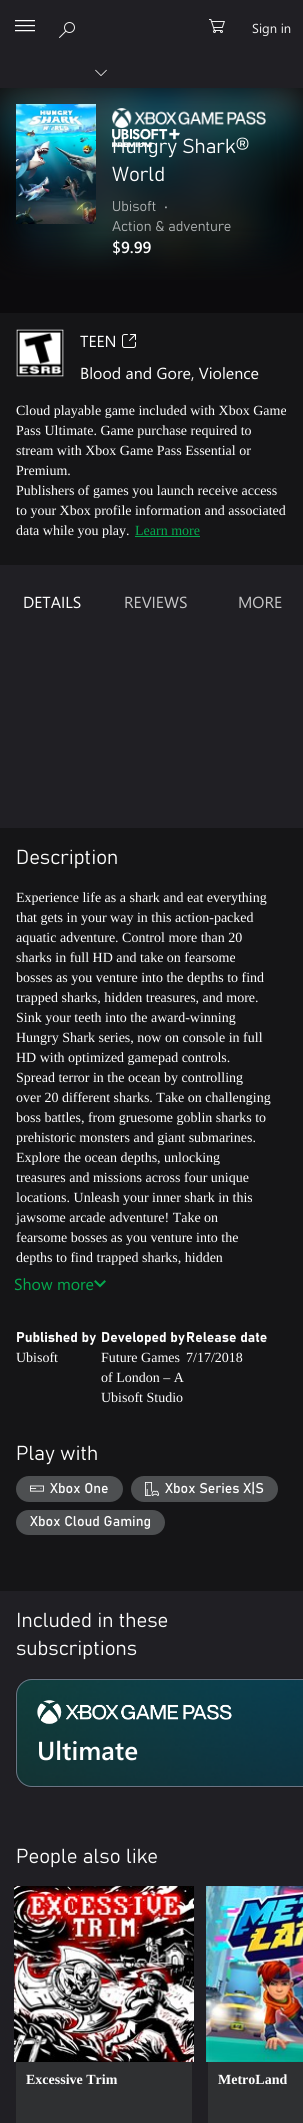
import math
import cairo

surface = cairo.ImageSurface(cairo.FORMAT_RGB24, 303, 2123)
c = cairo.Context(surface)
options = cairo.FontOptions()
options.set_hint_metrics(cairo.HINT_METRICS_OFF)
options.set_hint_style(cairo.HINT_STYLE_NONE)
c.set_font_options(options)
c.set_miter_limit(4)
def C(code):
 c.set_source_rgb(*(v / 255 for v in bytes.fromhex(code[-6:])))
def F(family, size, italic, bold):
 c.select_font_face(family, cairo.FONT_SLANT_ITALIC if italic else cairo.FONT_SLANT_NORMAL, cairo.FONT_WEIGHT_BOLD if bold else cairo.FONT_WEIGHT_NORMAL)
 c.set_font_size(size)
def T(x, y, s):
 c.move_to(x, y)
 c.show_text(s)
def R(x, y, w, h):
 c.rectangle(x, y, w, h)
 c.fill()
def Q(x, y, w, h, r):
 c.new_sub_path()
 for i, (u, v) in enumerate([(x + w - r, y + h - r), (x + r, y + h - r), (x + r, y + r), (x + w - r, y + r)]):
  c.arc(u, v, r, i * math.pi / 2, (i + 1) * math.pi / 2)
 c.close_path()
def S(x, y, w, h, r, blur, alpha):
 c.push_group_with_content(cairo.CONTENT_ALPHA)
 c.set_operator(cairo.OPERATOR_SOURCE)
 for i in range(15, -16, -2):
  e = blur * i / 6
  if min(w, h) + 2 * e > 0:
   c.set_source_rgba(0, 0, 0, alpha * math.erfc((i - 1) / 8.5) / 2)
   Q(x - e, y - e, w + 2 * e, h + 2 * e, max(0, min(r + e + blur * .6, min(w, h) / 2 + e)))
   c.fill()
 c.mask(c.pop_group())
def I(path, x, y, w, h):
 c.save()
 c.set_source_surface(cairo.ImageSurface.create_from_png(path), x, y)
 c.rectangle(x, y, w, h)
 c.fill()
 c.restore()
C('201f24')
c.paint()
C('0c0b0d')
R(0,88,303,225)
I('1.png',15,20,20,12)
I('2.png',59,22,16,16)
I('3.png',209,19,16,14)
F('Segoe UI',13,0,0)
C('f2f2f2')
T(252,33,'Sign in')
I('4.png',95,69,12,7)
I('5.png',0,88,303,192)
I('6.png',16,104,80,120)
I('7.png',112,108,154,20)
F('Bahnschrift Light',20,0,0)
C('ffffff')
T(112,153,'Hungry Shark®')
I('8.png',112,128,68,20)
T(112,181,'World')
F('Bahnschrift Light',14,0,0)
C('b0b4b5')
T(112,211,'Ubisoft')
T(164,211,'•')
T(112,231,'Action & adventure')
F('Segoe UI SemiBold',16,0,0)
C('ffffff')
T(112,253,'$9.99')
C('151517')
R(0,313,303,252)
I('9.png',16,329,48,48)
F('Segoe UI',16,0,0)
C('ffffff')
T(80,347,'TEEN')
I('10.png',122,334,14,14)
T(80,379,'Blood and Gore, Violence')
F('Liberation Serif',14,0,0)
T(16,415,'Cloud playable game included with Xbox Game')
T(16,435,'Pass Ultimate. Game purchase required to')
T(16,455,'stream with Xbox Game Pass Essential or')
T(16,475,'Premium.')
T(16,495,'Publishers of games you launch receive access')
T(16,515,'to your Xbox profile information and associated')
T(16,535,'data while you play.')
C('04ab4f')
T(135,535,'Learn more')
R(135,536,65,1)
F('Segoe UI',16,0,0)
C('ffffff')
T(23,608,'DETAILS')
C('c7c7c8')
T(124,608,'REVIEWS')
T(238,608,'MORE')
C('151517')
R(0,828,303,763)
F('Bahnschrift Light',20,0,0)
C('ffffff')
T(16,864,'Description')
F('Liberation Serif',14,0,0)
T(16,902,'Experience life as a shark and eat everything')
T(16,922,'that gets in your way in this action-packed')
T(16,942,'aquatic adventure. Control more than 20')
T(16,962,'sharks in full HD and take on fearsome')
T(16,982,'bosses as you venture into the depths to find')
T(16,1002,'trapped sharks, hidden treasures, and more.')
T(16,1022,'Sink your teeth into the award-winning')
T(16,1042,'Hungry Shark series, now on console in full')
T(16,1062,'HD with optimized gamepad controls.')
T(16,1082,'Spread terror in the ocean by controlling')
T(16,1102,'over 20 different sharks. Take on challenging')
T(16,1122,'boss battles, from gruesome goblin sharks to')
T(16,1142,'prehistoric monsters and giant submarines.')
T(16,1162,'Explore the ocean depths, unlocking')
T(16,1182,'treasures and missions across four unique')
T(16,1202,'locations. Unleash your inner shark in this')
T(16,1222,'jawsome arcade adventure! Take on')
T(16,1242,'fearsome bosses as you venture into the')
T(16,1262,'depths to find trapped sharks, hidden')
F('Segoe UI',16,0,0)
C('04ab4f')
T(14,1290,'Show more')
I('11.png',94,1280,12,8)
F('Bahnschrift',14,0,1)
C('ffffff')
T(16,1342,'Published by')
F('Liberation Serif',14,0,0)
T(16,1362,'Ubisoft')
F('Bahnschrift',14,0,1)
T(101,1342,'Developed by')
F('Liberation Serif',14,0,0)
T(101,1362,'Future Games')
T(101,1382,'of London – A')
T(101,1402,'Ubisoft Studio')
F('Bahnschrift',14,0,1)
T(186,1342,'Release date')
F('Liberation Serif',14,0,0)
T(186,1362,'7/17/2018')
F('Bahnschrift Light',20,0,0)
T(16,1460,'Play with')
C('4d4f51')
Q(16,1476,107,26,13)
c.fill()
I('12.png',30,1485,14,7)
F('Bahnschrift',14,0,0)
C('ffffff')
T(50,1493,'Xbox One')
C('4d4f51')
Q(131,1476,147,26,13)
c.fill()
I('13.png',145,1482,14,14)
C('ffffff')
T(165,1493,'Xbox Series X|S')
C('4d4f51')
Q(16,1510,149,25,12.5)
c.fill()
C('ffffff')
T(30,1526,'Xbox Cloud Gaming')
F('Bahnschrift Light',20,0,0)
T(16,1627,'Included in these')
T(16,1655,'subscriptions')
C('000000')
S(16,1679,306,108,16,1,.3)
I('14.png',17,1679,286,108)
Q(16.5,1679.5,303,107,15.5)
C('6b7584')
c.set_line_width(1)
c.stroke()
I('15.png',37,1700,195,24)
F('Segoe UI SemiBold',26,0,0)
C('ffffff')
T(37,1760,'Ultimate')
F('Bahnschrift Light',20,0,0)
T(16,1863,'People also like')
C('2f3032')
R(16,2062,176,61)
I('16.png',14,1886,180,176)
F('Liberation Serif',14,0,1)
C('ffffff')
T(26,2084,'Excessive Trim')
C('2f3032')
R(208,2062,95,61)
I('17.png',206,1886,97,176)
C('ffffff')
T(218,2084,'MetroLand')
surface.write_to_png('o.png')
